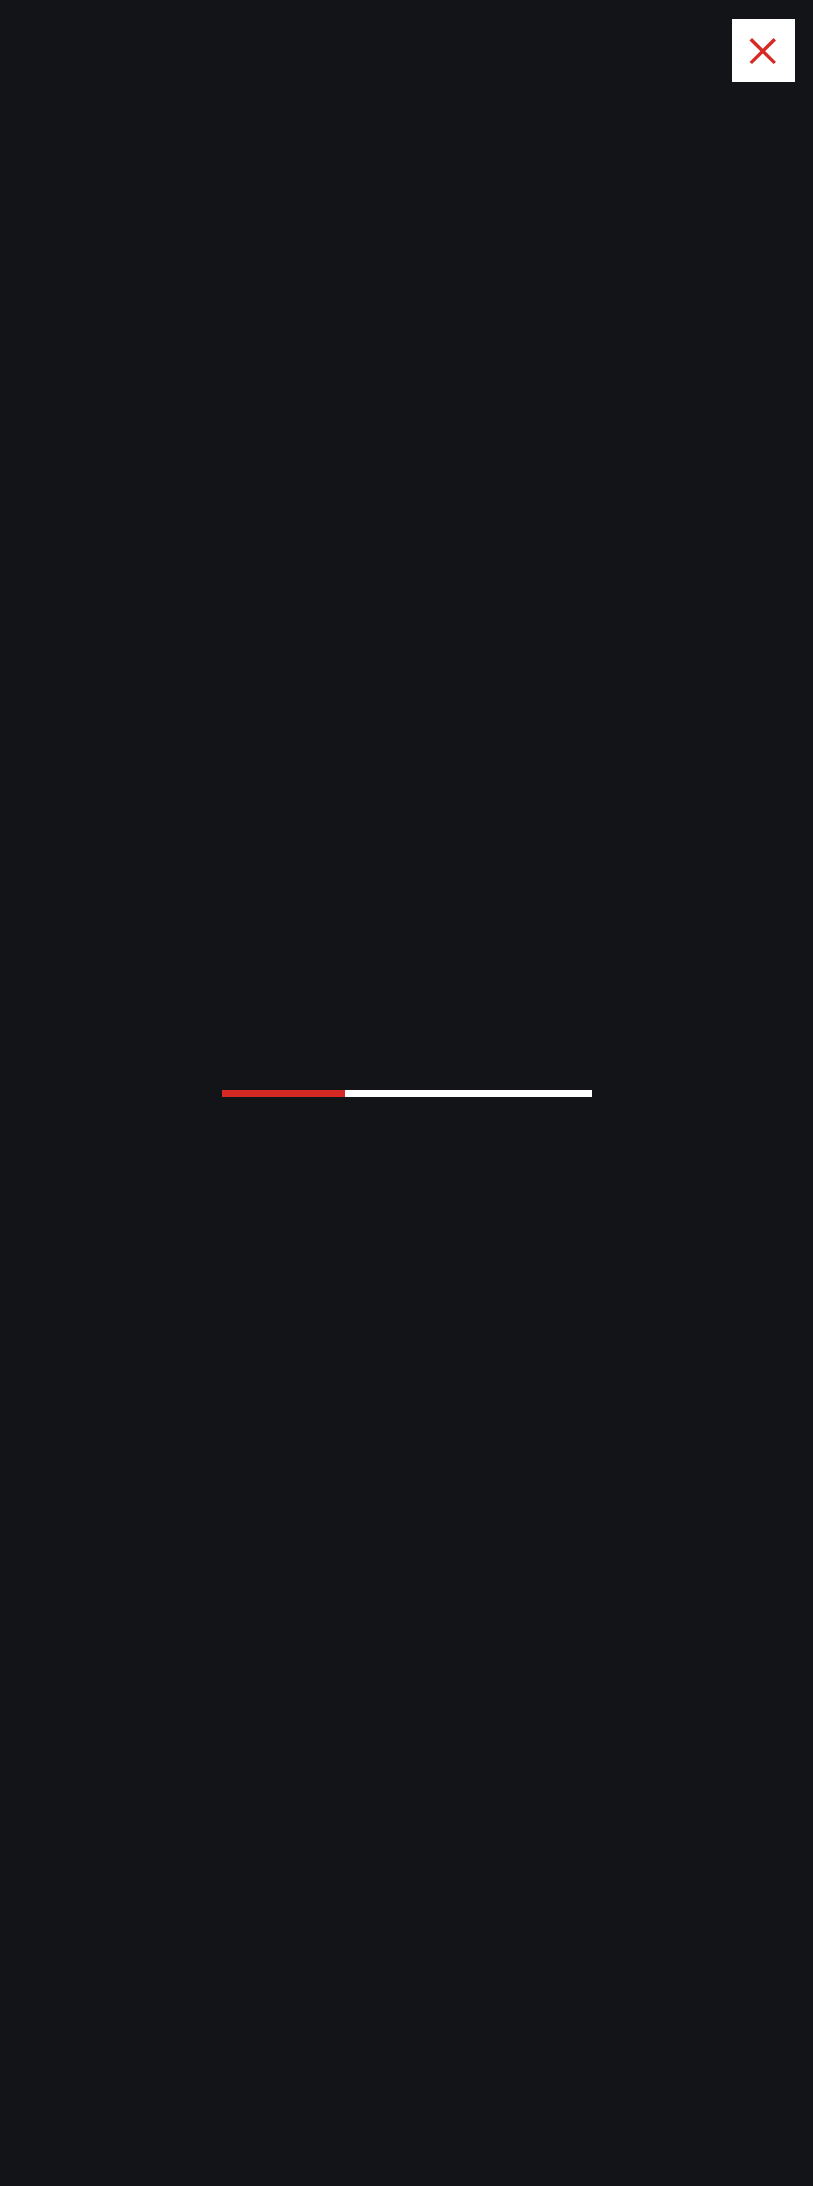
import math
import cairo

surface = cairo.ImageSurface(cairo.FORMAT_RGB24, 813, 2186)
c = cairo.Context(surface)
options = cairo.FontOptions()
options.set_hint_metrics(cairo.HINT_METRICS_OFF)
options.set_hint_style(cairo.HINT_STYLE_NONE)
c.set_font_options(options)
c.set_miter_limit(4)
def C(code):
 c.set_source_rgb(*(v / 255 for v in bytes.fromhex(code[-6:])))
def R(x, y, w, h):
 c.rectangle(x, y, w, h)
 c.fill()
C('121418')
c.paint()
C('ffffff')
R(732,19,63,63)
C('d72924')
c.new_path()
c.move_to(749.5,62)
c.line_to(773.5,38)
c.line_to(776,40.5)
c.line_to(752,64)
c.close_path()
c.fill()
c.new_path()
c.move_to(773.5,64)
c.line_to(749.5,40.5)
c.line_to(752,38)
c.line_to(776,62)
c.close_path()
c.fill()
C('ffffff')
R(345,1090,247,7)
C('d72924')
R(222,1090,123,7)
surface.write_to_png('o.png')
